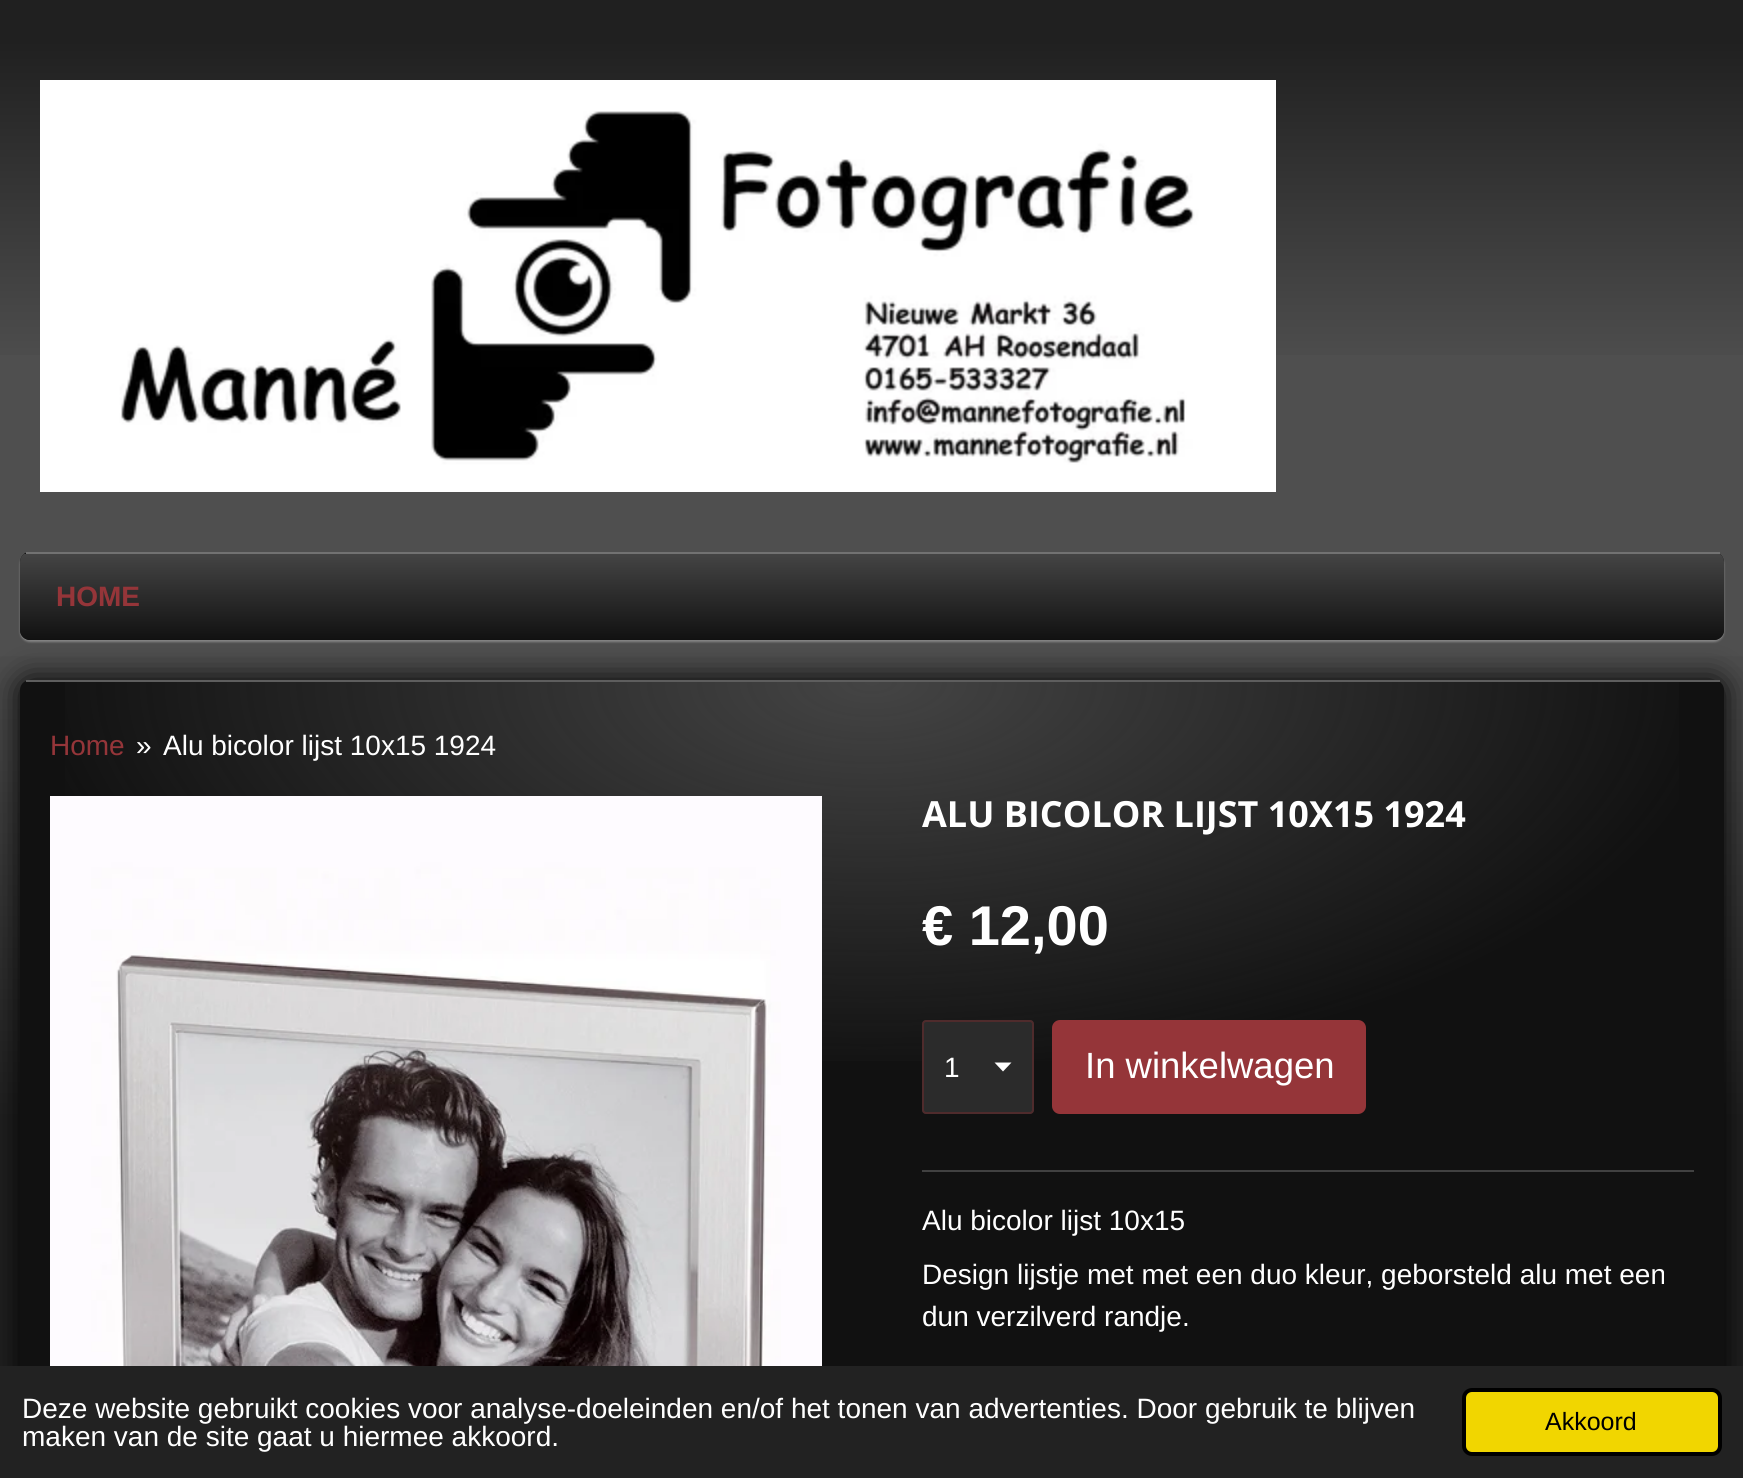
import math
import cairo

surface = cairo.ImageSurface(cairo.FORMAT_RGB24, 1743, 1478)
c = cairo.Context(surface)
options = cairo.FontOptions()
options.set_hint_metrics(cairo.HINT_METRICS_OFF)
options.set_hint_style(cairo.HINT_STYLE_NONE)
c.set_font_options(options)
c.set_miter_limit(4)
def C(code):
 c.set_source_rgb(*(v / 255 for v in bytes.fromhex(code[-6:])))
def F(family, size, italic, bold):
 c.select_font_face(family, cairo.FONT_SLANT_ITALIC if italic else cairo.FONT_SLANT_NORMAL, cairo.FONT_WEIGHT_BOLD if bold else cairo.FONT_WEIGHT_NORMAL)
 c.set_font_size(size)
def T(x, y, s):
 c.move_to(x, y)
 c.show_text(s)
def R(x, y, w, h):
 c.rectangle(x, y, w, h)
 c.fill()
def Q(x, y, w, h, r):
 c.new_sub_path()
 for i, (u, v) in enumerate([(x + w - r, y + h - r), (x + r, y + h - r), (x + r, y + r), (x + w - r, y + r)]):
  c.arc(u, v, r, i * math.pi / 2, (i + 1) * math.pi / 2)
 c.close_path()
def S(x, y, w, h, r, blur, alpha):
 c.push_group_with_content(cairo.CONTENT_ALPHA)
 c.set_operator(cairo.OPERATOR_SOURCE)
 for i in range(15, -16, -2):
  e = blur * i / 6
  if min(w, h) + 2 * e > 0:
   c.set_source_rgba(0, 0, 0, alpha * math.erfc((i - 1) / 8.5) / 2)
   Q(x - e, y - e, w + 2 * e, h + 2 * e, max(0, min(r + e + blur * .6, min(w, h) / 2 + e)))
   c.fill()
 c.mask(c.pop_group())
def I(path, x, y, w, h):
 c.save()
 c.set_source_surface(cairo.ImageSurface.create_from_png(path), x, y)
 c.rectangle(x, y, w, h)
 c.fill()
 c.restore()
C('4f4f4f')
c.paint()
C('202020')
R(0,0,1743,40)
gradient = cairo.LinearGradient(872,380,872,40)
gradient.add_color_stop_rgba(0,0.314,0.314,0.314,1)
gradient.add_color_stop_rgba(1,0.125,0.125,0.125,1)
c.set_source(gradient)
R(0,40,1743,315)
I('1.png',40,80,1236,412)
C('ffffff')
S(20,554,1704,88,10,1,.3)
C('111111')
Q(20,552,1704,88,10)
c.fill()
c.save()
Q(20,552,1704,88,10)
c.clip()
gradient = cairo.LinearGradient(872,554,872,468)
gradient.add_color_stop_rgba(0,0.067,0.067,0.067,1)
gradient.add_color_stop_rgba(1,0.267,0.267,0.267,1)
c.set_source(gradient)
R(20,552,6,2)
gradient = cairo.LinearGradient(872,640,872,554)
gradient.add_color_stop_rgba(0,0.067,0.067,0.067,1)
gradient.add_color_stop_rgba(1,0.267,0.267,0.267,1)
c.set_source(gradient)
c.new_path()
c.move_to(20,554)
c.line_to(1724,554)
c.line_to(1724,630)
c.curve_to(1724,635.5,1719.5,640,1714,640)
c.line_to(30,640)
c.curve_to(24.5,640,20,635.5,20,630)
c.close_path()
c.fill()
c.restore()
C('727272')
R(26,552,1694,2)
F('Liberation Sans',28,0,1)
C('953539')
T(56,606,'HOME')
gradient = cairo.LinearGradient(872,1120,872,620)
gradient.add_color_stop_rgba(0,0.125,0.125,0.125,1)
gradient.add_color_stop_rgba(1,0.314,0.314,0.314,1)
c.set_source(gradient)
R(0,656,1743,464)
C('202020')
R(0,1120,1743,246)
C('000000')
S(20,680,1704,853,10,15,1)
C('111111')
Q(20,680,1704,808,10)
c.fill()
C('5e5e5e')
R(26,680,1694,2)
gradient = cairo.RadialGradient(0,0,0,0,0,1)
gradient.set_matrix(cairo.Matrix(1 / 852, 0, 0, 1 / 400, -1 * 872 / 852, -1 * 682 / 400))
gradient.add_color_stop_rgba(0,0.267,0.267,0.267,1)
gradient.add_color_stop_rgba(1,0.267,0.267,0.267,0)
c.set_source(gradient)
R(65,682,1614,379)
F('Liberation Sans',28,0,0)
C('953539')
T(50,755,'Home')
C('ffffff')
T(136,755,'»')
T(163,755,'Alu bicolor lijst 10x15 1924')
I('2.png',50,796,772,570)
F('Open Sans',36,0,1)
T(922,827,'ALU BICOLOR LIJST 10X15 1924')
F('Liberation Sans',56,0,1)
T(922,945,'€ 12,00')
C('2b2b2b')
Q(922,1020,112,94,4)
c.fill()
C('ffffff')
c.new_path()
c.move_to(1003,1071.5)
c.line_to(994.5,1062.5)
c.line_to(1011.5,1062.5)
c.close_path()
c.fill()
Q(923,1021,110,92,3)
c.set_source_rgba(0.455,0.173,0.184,0.5)
c.stroke()
F('Liberation Sans',28,0,0)
C('ffffff')
T(944,1077,'1')
C('953539')
Q(1052,1020,314,94,8)
c.fill()
F('Liberation Sans',36.5,0,0)
C('ffffff')
T(1085,1078,'In winkelwagen')
C('414141')
R(922,1170,772,2)
F('Liberation Sans',28,0,0)
C('ffffff')
T(922,1230,'Alu bicolor lijst 10x15')
T(922,1284,'Design lijstje met met een duo kleur, geborsteld alu met een')
T(922,1326,'dun verzilverd randje.')
C('222222')
R(0,1366,1743,112)
C('ffffff')
T(22,1418,'Deze website gebruikt cookies voor analyse-doeleinden en/of het tonen van advertenties. Door gebruik te blijven')
T(22,1446,'maken van de site gaat u hiermee akkoord.')
C('f1d600')
Q(1464,1390,256,64,8)
c.fill_preserve()
C('000000')
c.set_line_width(4)
c.stroke()
F('Liberation Sans',25,0,0)
T(1545,1430,'Akkoord')
surface.write_to_png('o.png')
